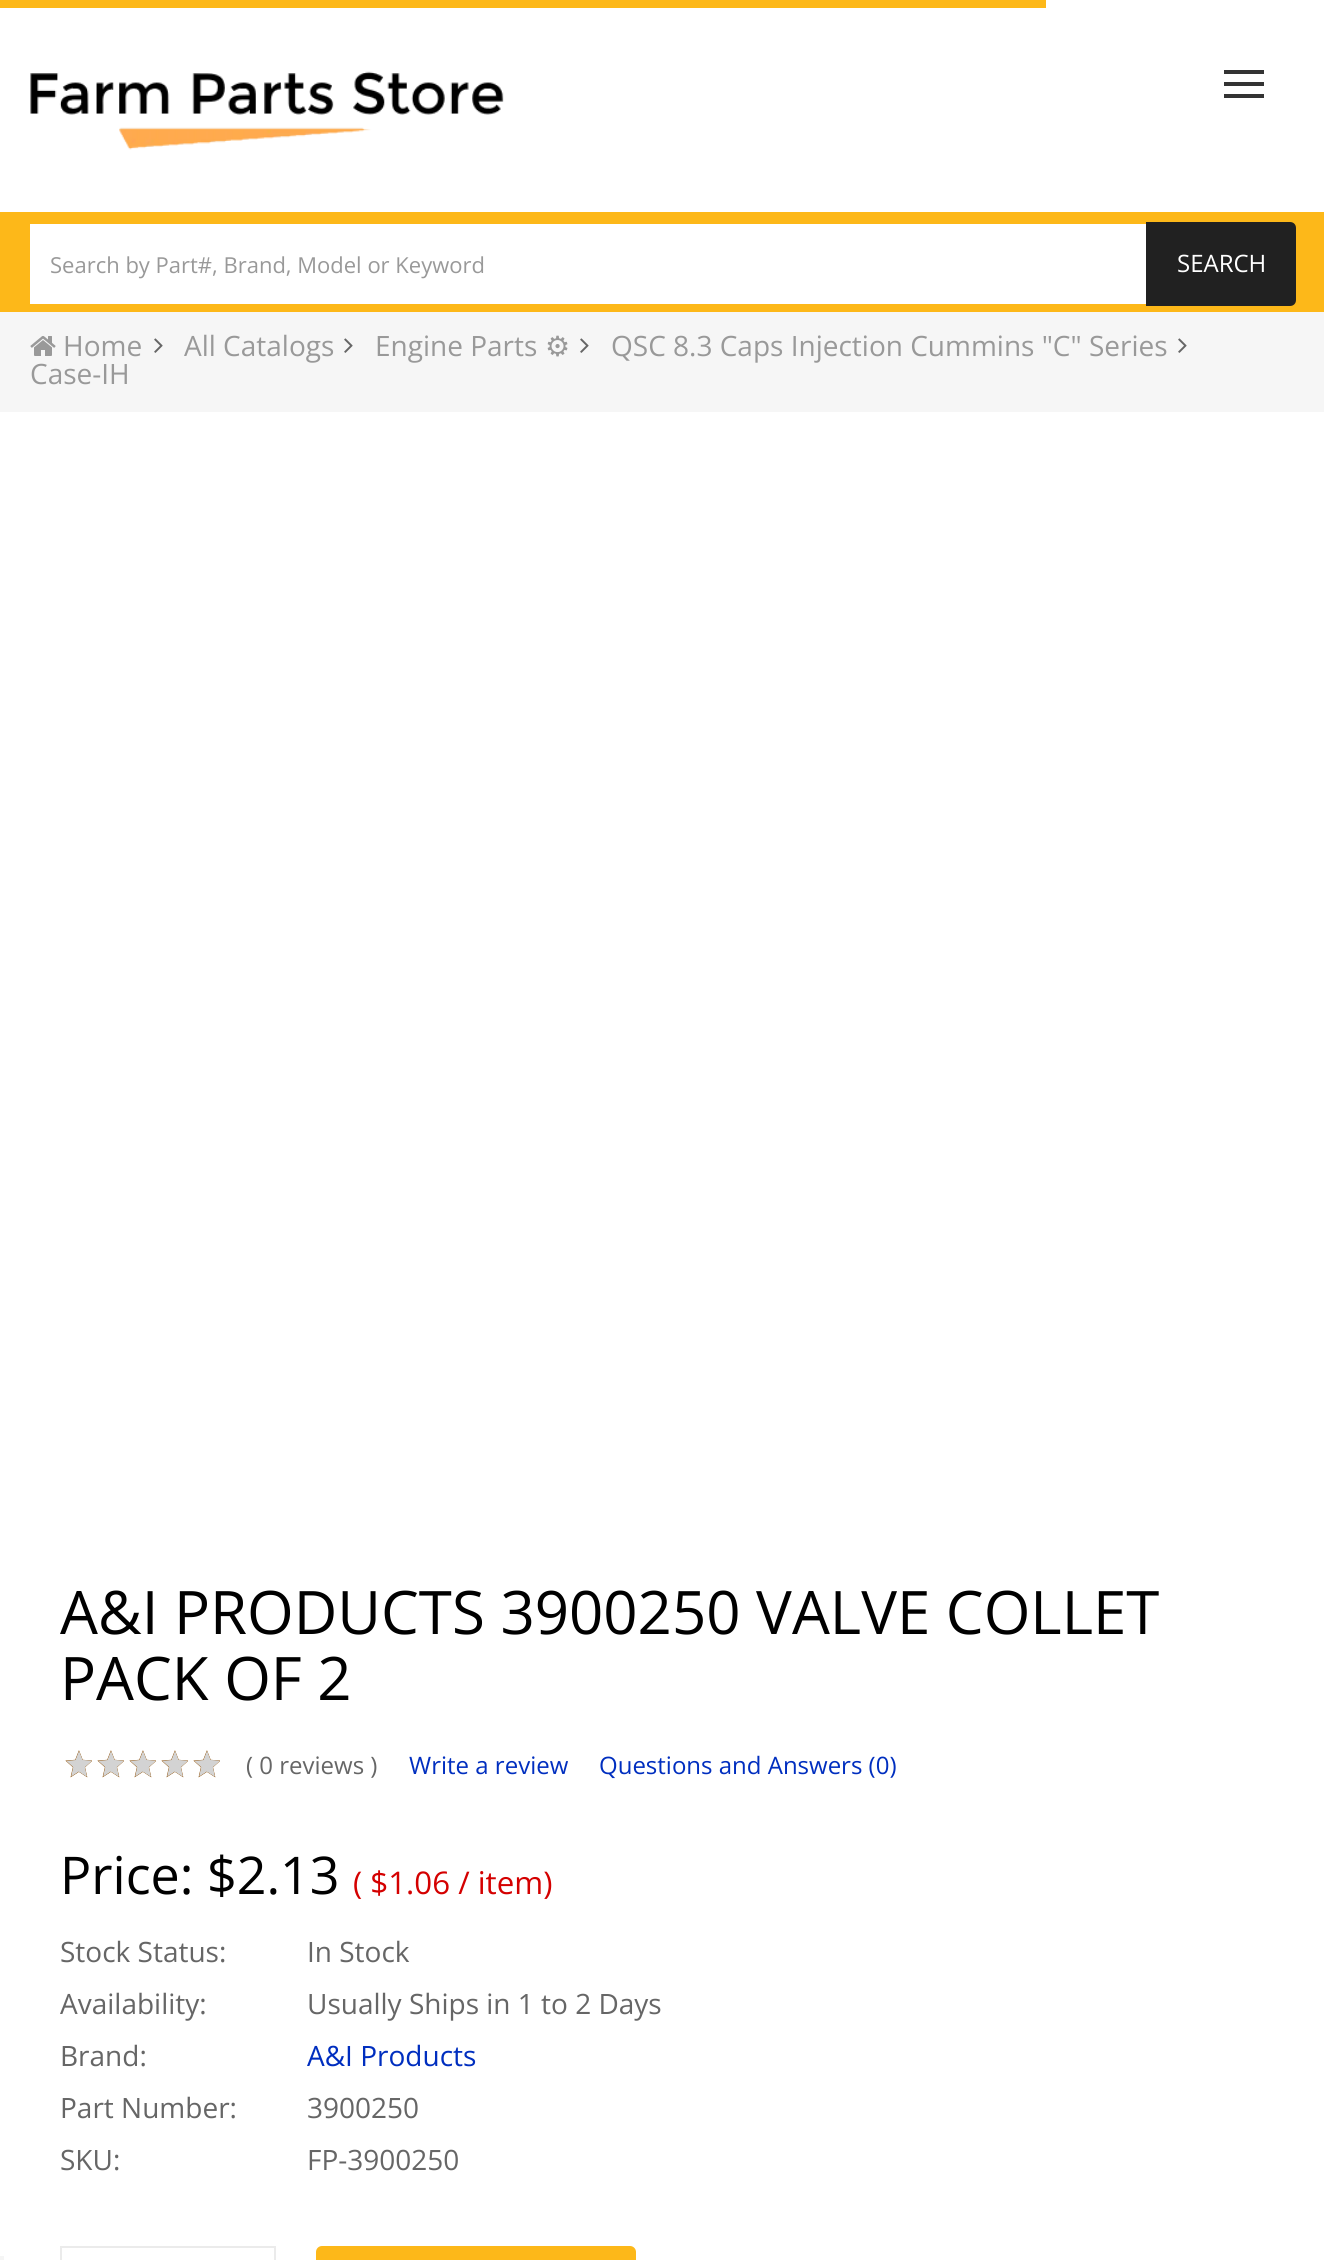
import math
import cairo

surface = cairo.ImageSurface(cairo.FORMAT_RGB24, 1324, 2260)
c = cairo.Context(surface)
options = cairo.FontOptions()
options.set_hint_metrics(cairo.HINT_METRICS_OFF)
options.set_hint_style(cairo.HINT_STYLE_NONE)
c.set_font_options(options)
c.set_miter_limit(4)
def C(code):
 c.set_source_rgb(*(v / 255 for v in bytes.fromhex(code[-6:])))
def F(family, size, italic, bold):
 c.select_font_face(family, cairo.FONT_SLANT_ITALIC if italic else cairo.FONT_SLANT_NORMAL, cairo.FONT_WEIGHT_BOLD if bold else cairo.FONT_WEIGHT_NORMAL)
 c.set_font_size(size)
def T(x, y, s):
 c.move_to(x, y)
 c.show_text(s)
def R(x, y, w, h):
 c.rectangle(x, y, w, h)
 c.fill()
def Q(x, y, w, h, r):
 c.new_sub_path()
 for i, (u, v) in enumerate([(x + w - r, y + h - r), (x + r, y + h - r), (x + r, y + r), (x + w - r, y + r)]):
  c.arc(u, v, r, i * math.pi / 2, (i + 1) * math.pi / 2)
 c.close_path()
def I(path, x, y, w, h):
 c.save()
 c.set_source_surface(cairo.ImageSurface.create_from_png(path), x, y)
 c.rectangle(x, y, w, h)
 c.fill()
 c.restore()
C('f6f6f6')
c.paint()
C('ffffff')
R(0,0,1324,212)
C('fdb819')
R(0,0,1046,8)
I('1.png',30,71,474,79)
C('333333')
R(1224,70,40,4)
R(1224,82,40,4)
R(1224,94,40,4)
C('fdb819')
R(0,212,1324,100)
C('ffffff')
R(30,224,1116,80)
F('Open Sans',22,0,0)
C('999999')
T(50,273,'Search by Part#, Brand, Model or Keyword')
C('212121')
c.new_path()
c.move_to(1146,222)
c.line_to(1290,222)
c.curve_to(1293.5,222,1296,224.5,1296,228)
c.line_to(1296,300)
c.curve_to(1296,303.5,1293.5,306,1290,306)
c.line_to(1146,306)
c.close_path()
c.fill()
F('Open Sans',24,0,0)
C('ffffff')
T(1177,272,'SEARCH')
I('2.png',30,336,26,20)
F('Open Sans',28,0,0)
C('999999')
T(63,356,'Home')
I('3.png',154,338,9,15)
T(184,356,'All Catalogs')
I('3.png',344,338,9,15)
T(375,356,'Engine Parts')
F('DejaVu Sans',28,0,0)
T(545,356,'⚙')
I('3.png',580,338,9,15)
F('Open Sans',28,0,0)
T(611,356,'QSC 8.3 Caps Injection Cummins "C" Series')
I('3.png',1178,338,9,15)
T(30,384,'Case-IH')
C('ffffff')
R(0,412,1324,1848)
F('Open Sans',60,0,0)
C('000000')
T(60,1634,'A&I PRODUCTS 3900250 VALVE COLLET')
T(60,1700,'PACK OF 2')
I('4.png',65,1750,27,28)
I('4.png',97,1750,27,28)
I('4.png',129,1750,27,28)
I('4.png',161,1750,27,28)
I('4.png',193,1750,27,28)
F('Open Sans',24,0,0)
C('666666')
T(246,1774,'( 0 reviews )')
C('002ebf')
T(409,1774,'Write a review')
T(599,1774,'Questions and Answers (0)')
F('Open Sans',52,0,0)
C('000000')
T(60,1894,'Price: $2.13')
F('Open Sans',31.25,0,0)
C('d40000')
T(353,1894,'( $1.06 / item)')
F('Open Sans',28,0,0)
C('666666')
T(60,1962,'Stock Status:')
T(307,1962,'In Stock')
T(60,2014,'Availability:')
T(307,2014,'Usually Ships in 1 to 2 Days')
T(60,2066,'Brand:')
C('002ebf')
T(307,2066,'A&I Products')
C('666666')
T(60,2118,'Part Number:')
T(307,2118,'3900250')
T(60,2170,'SKU:')
T(307,2170,'FP-3900250')
c.rectangle(61,2247,214,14)
C('ebebeb')
c.stroke()
C('fdb819')
Q(316,2246,320,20,6)
c.fill()
C('f5f5f5')
R(0,2256,4,4)
surface.write_to_png('o.png')
